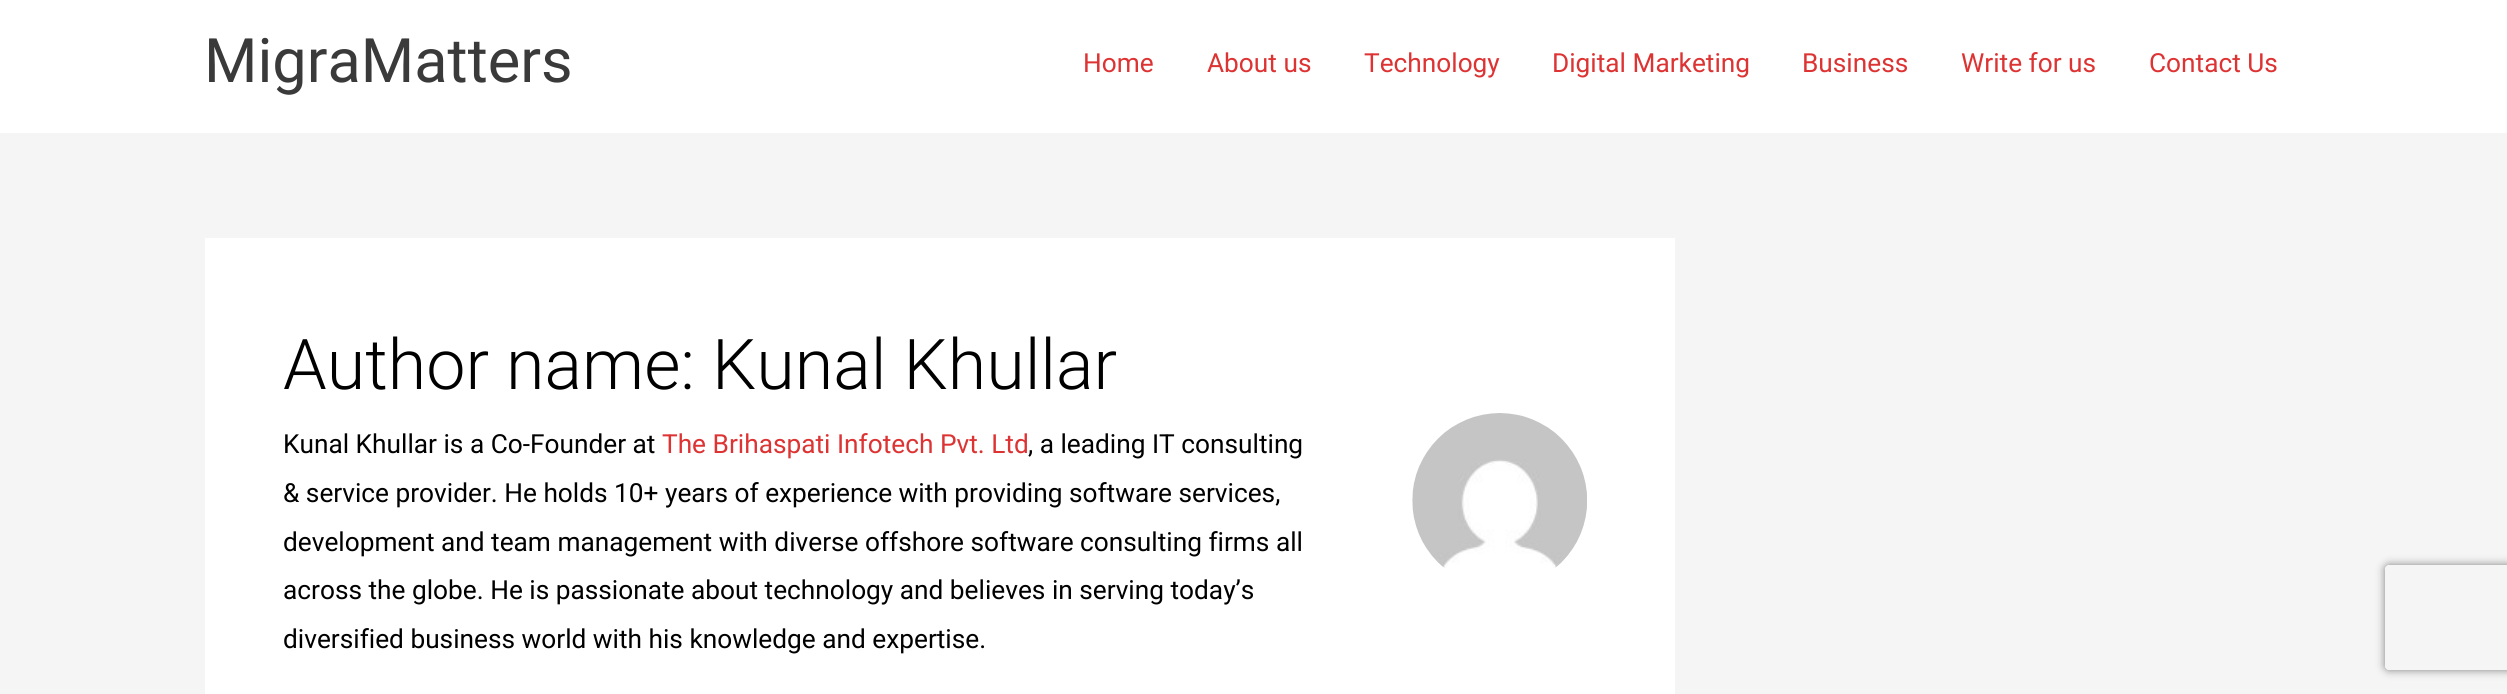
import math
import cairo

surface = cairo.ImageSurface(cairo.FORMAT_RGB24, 2507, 694)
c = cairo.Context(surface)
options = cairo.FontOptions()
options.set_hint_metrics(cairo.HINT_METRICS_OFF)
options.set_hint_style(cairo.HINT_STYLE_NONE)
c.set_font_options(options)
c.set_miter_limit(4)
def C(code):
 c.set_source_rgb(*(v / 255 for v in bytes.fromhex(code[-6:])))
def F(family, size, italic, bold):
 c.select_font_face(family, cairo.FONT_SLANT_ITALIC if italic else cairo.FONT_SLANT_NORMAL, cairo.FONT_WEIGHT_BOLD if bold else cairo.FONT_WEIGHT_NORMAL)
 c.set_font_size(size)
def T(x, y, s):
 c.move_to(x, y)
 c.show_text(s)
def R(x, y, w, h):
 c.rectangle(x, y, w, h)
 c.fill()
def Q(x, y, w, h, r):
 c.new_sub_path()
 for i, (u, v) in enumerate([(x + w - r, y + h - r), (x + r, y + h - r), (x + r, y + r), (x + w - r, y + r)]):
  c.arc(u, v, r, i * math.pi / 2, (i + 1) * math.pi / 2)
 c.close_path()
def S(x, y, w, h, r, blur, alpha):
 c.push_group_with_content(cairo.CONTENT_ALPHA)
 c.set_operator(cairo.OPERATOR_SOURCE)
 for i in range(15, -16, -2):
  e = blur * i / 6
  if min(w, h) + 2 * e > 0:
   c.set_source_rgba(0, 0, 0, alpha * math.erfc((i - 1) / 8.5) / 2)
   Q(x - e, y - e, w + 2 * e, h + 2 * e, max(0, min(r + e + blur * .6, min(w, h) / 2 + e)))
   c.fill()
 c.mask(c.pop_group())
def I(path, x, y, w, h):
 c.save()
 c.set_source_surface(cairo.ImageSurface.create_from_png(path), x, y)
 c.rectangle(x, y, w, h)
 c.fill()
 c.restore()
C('f5f5f5')
c.paint()
C('ffffff')
R(0,0,2507,133)
F('Roboto',61.25,0,0)
C('3a3a3a')
T(204,82,'MigraMatters')
F('Roboto',26.25,0,0)
C('dd3333')
T(1083,72,'Home')
T(1207,72,'About us')
T(1364,72,'Technology')
T(1552,72,'Digital Marketing')
T(1802,72,'Business')
T(1961,72,'Write for us')
T(2149,72,'Contact Us')
C('ffffff')
R(205,238,1470,456)
F('Roboto Light',70,0,0)
C('000000')
T(283,389,'Author name: Kunal Khullar')
F('Roboto',26.25,0,0)
T(283,453,'Kunal Khullar is a Co-Founder at')
C('dd3333')
T(662,453,'The Brihaspati Infotech Pvt. Ltd')
C('000000')
T(1028,453,', a leading IT consulting')
T(283,502,'& service provider. He holds 10+ years of experience with providing software services,')
T(283,551,'development and team management with diverse offshore software consulting firms all')
T(283,599,'across the globe. He is passionate about technology and believes in serving today’s')
T(283,648,'diversified business world with his knowledge and expertise.')
I('1.png',1412,413,175,155)
c.save()
c.set_fill_rule(cairo.FILL_RULE_EVEN_ODD)
c.new_path()
c.move_to(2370,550)
c.line_to(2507,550)
c.line_to(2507,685)
c.line_to(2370,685)
c.close_path()
c.move_to(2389,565)
c.line_to(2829,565)
c.curve_to(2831,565,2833,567,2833,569)
c.line_to(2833,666)
c.curve_to(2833,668,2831,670,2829,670)
c.line_to(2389,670)
c.curve_to(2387,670,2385,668,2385,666)
c.line_to(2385,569)
c.curve_to(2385,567,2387,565,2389,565)
c.close_path()
c.clip()
C('808080')
S(2385,565,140,105,4,4.5,1)
c.restore()
surface.write_to_png('o.png')
